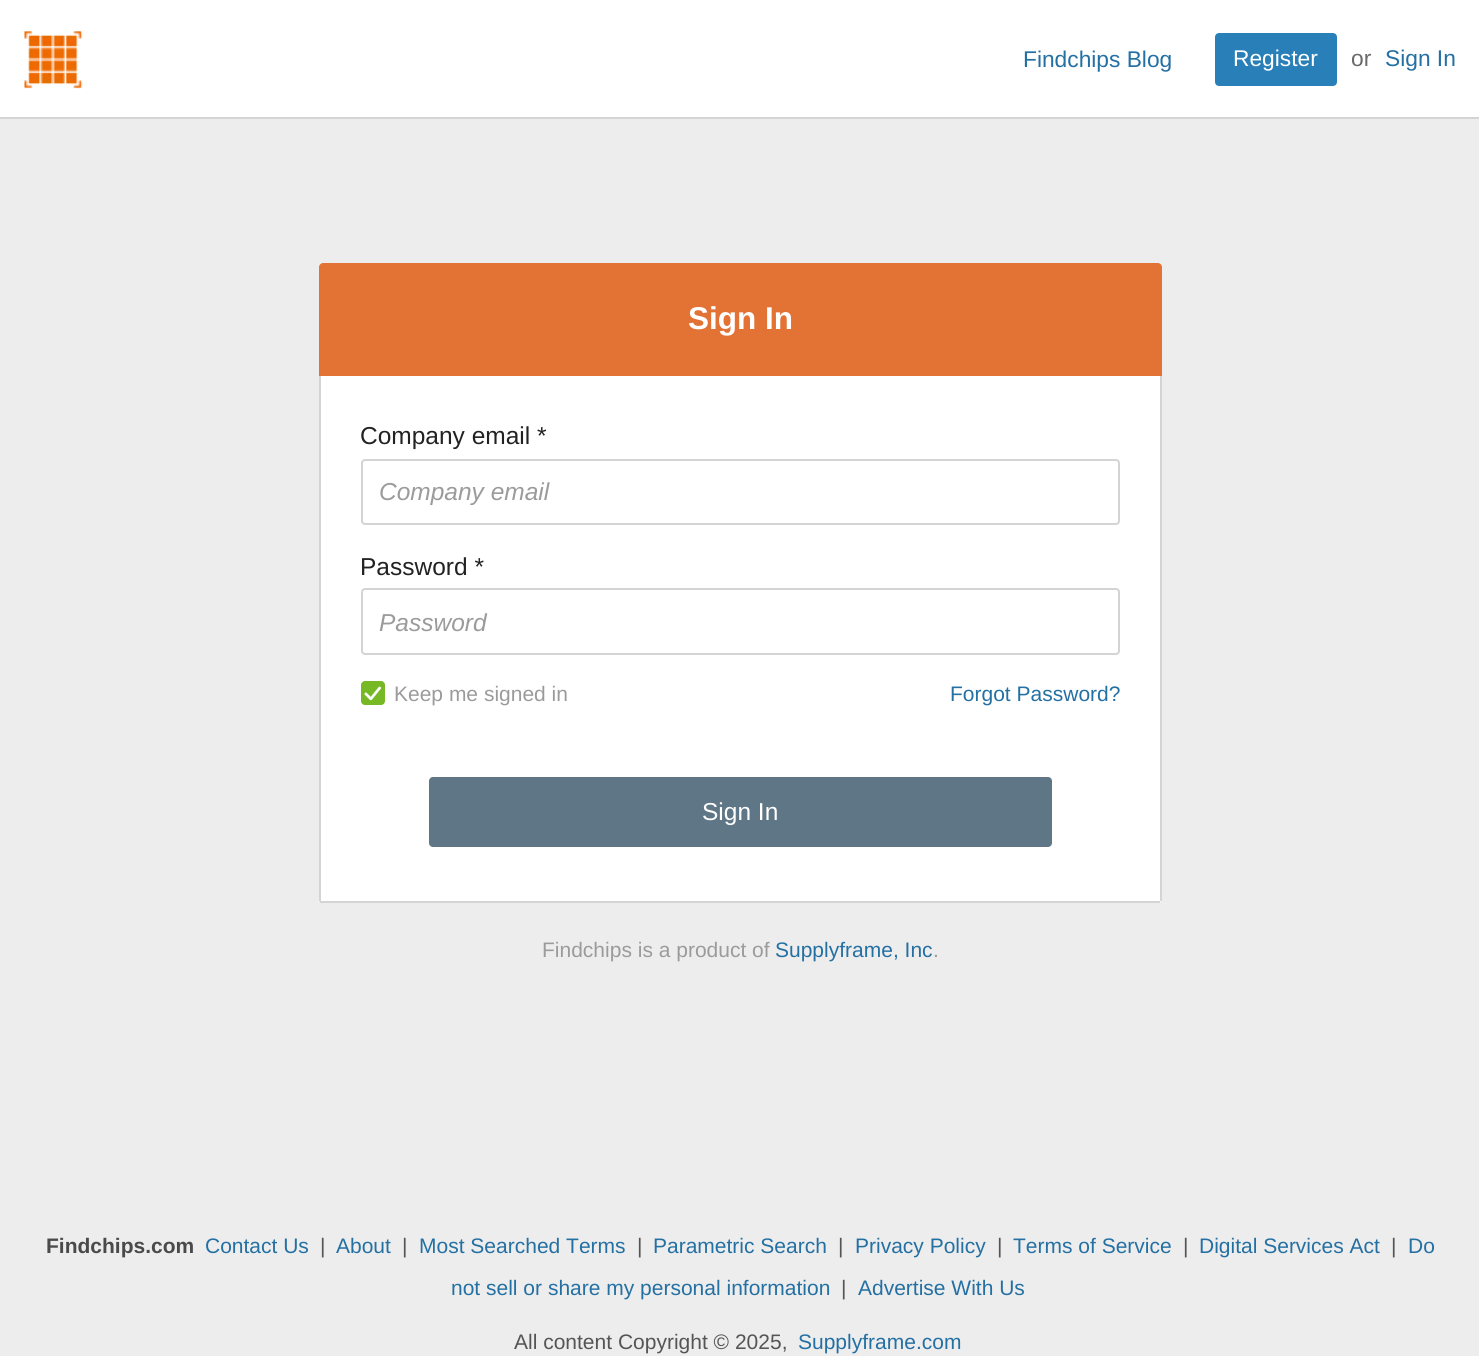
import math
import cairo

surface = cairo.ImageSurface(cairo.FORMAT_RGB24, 1479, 1356)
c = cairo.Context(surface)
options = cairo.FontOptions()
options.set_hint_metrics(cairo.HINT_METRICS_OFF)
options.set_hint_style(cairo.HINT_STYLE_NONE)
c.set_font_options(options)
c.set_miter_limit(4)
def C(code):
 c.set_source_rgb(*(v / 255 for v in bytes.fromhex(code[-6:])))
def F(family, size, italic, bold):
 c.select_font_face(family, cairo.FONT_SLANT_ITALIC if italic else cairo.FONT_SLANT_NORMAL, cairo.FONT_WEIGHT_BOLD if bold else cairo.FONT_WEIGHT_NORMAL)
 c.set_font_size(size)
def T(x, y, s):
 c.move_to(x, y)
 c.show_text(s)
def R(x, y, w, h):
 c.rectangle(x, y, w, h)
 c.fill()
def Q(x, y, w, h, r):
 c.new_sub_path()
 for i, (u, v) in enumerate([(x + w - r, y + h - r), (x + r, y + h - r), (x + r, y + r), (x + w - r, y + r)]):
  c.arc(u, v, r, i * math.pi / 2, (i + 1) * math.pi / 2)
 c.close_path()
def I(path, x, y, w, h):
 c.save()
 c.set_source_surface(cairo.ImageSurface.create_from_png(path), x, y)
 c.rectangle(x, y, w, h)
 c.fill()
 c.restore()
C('ededed')
c.paint()
C('ffffff')
R(0,0,1479,117)
C('d4d4d4')
R(0,117,1479,2)
I('1.png',24,31,59,58)
F('Liberation Sans',22.75,0,0)
C('2470a3')
T(1023,67,'Findchips Blog')
C('2980b9')
Q(1216,34,120,51,3)
c.fill_preserve()
c.stroke()
C('ffffff')
T(1233,66,'Register')
C('696969')
T(1351,66,'or')
C('2470a3')
T(1385,66,'Sign In')
C('e37235')
c.new_path()
c.move_to(323,263)
c.line_to(1158,263)
c.curve_to(1160,263,1162,265,1162,267)
c.line_to(1162,376)
c.line_to(319,376)
c.line_to(319,267)
c.curve_to(319,265,321,263,323,263)
c.close_path()
c.fill()
F('Liberation Sans',31.5,0,1)
C('ffffff')
T(688,329,'Sign In')
c.new_path()
c.move_to(319,376)
c.line_to(1162,376)
c.line_to(1162,899)
c.curve_to(1162,901,1160,903,1158,903)
c.line_to(323,903)
c.curve_to(321,903,319,901,319,899)
c.close_path()
c.fill()
C('d4d4d4')
R(1160,376,2,525)
R(320,901,840,2)
R(319,376,2,525)
F('Liberation Sans',24.5,0,0)
C('222222')
T(360,444,'Company email *')
Q(362,460,757,64,3)
C('d4d4d4')
c.stroke()
F('Liberation Sans',24.5,1,0)
C('9b9b9b')
T(379,500,'Company email')
F('Liberation Sans',24.5,0,0)
C('222222')
T(360,575,'Password *')
Q(362,589,757,65,3)
C('d4d4d4')
c.stroke()
F('Liberation Sans',24.5,1,0)
C('9b9b9b')
T(379,631,'Password')
C('77b925')
Q(361,681,24,24,4)
c.fill()
I('2.png',364,686,17,15)
F('Liberation Sans',21,0,0)
C('9b9b9b')
T(394,701,'Keep me signed in')
C('2470a3')
T(950,701,'Forgot Password?')
C('5f7686')
Q(429,777,623,70,4)
c.fill()
F('Liberation Sans',24.5,0,0)
C('ffffff')
T(702,820,'Sign In')
F('Liberation Sans',21,0,0)
C('9b9b9b')
T(542,957,'Findchips is a product of')
C('2470a3')
T(775,957,'Supplyframe, Inc')
C('9b9b9b')
T(933,957,'.')
F('Liberation Sans',21,0,1)
C('4a4a4a')
T(46,1253,'Findchips.com')
F('Liberation Sans',21,0,0)
C('2470a3')
T(205,1253,'Contact Us')
C('555555')
T(320,1253,'|')
C('2470a3')
T(336,1253,'About')
C('555555')
T(402,1253,'|')
C('2470a3')
T(419,1253,'Most Searched Terms')
C('555555')
T(637,1253,'|')
C('2470a3')
T(653,1253,'Parametric Search')
C('555555')
T(838,1253,'|')
C('2470a3')
T(855,1253,'Privacy Policy')
C('555555')
T(997,1253,'|')
C('2470a3')
T(1013,1253,'Terms of Service')
C('555555')
T(1183,1253,'|')
C('2470a3')
T(1199,1253,'Digital Services Act')
C('555555')
T(1391,1253,'|')
C('2470a3')
T(1408,1253,'Do')
T(451,1295,'not sell or share my personal information')
C('555555')
T(841,1295,'|')
C('2470a3')
T(858,1295,'Advertise With Us')
C('555555')
T(514,1349,'All content Copyright © 2025,')
C('2470a3')
T(798,1349,'Supplyframe.com')
surface.write_to_png('o.png')
